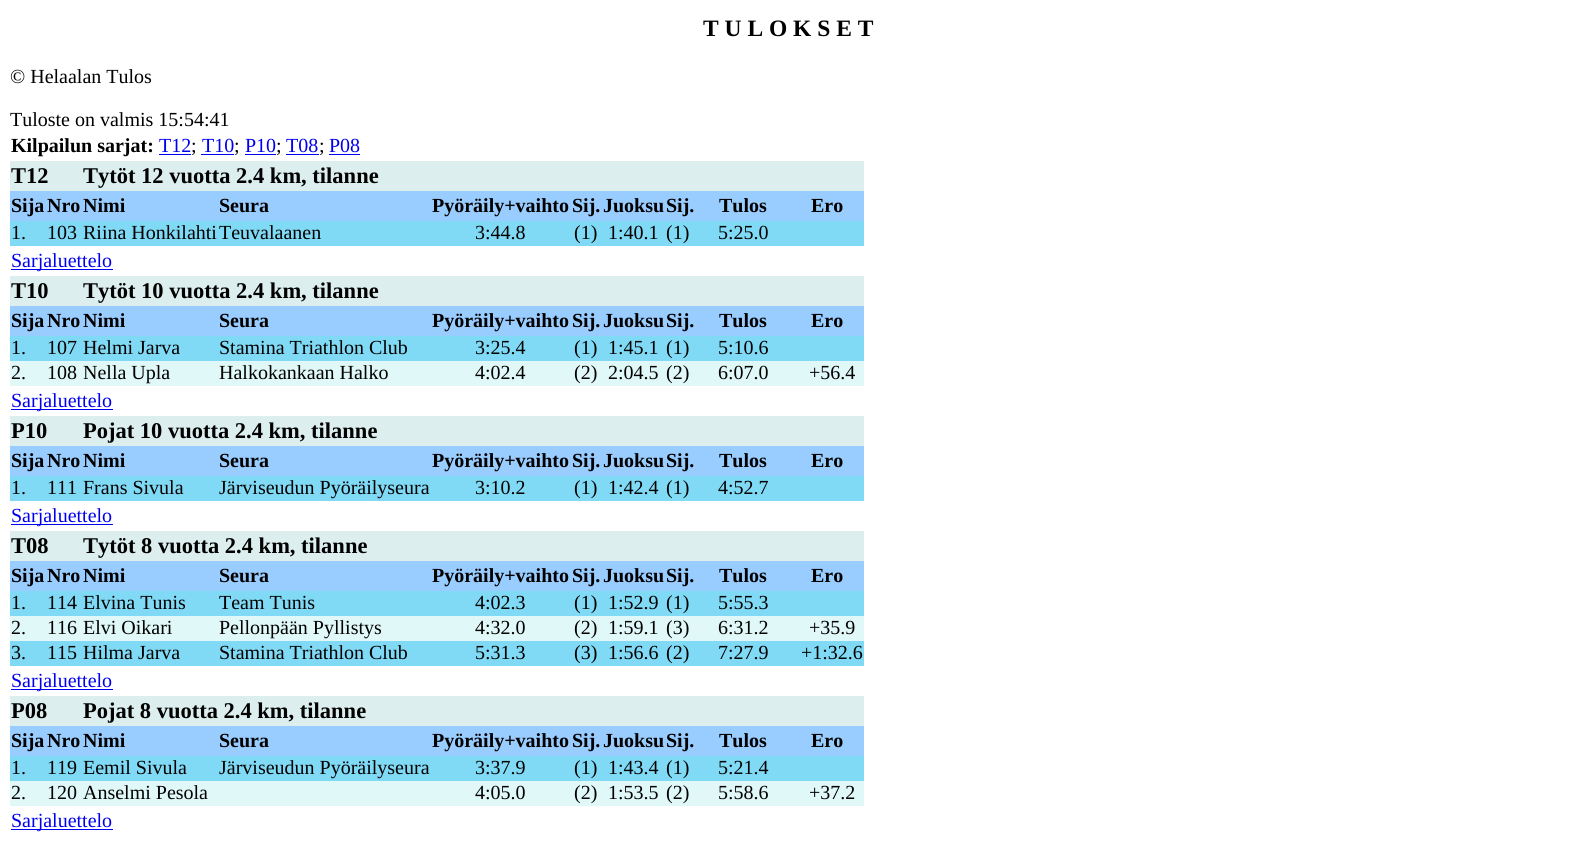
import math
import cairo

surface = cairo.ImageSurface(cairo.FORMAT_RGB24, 1574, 849)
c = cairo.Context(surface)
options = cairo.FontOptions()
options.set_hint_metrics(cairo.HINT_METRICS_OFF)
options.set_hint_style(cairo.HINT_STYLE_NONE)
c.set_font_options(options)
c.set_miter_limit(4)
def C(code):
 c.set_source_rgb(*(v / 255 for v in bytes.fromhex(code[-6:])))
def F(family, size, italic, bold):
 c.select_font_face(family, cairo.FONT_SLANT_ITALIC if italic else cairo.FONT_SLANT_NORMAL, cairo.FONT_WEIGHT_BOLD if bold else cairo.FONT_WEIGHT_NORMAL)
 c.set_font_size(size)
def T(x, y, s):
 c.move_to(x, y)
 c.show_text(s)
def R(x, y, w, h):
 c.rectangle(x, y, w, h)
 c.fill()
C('ffffff')
c.paint()
F('Liberation Serif',23.5,0,1)
C('000000')
T(703,36,'T U L O K S E T')
F('Liberation Serif',20,0,0)
T(10,83,'© Helaalan Tulos')
T(10,126,'Tuloste on valmis 15:54:41')
F('Liberation Serif',20,0,1)
T(11,152,'Kilpailun sarjat:')
F('Liberation Serif',20,0,0)
C('0000ee')
T(159,152,'T12')
R(159,154,32,1)
C('000000')
T(191,152,';')
C('0000ee')
T(202,152,'T10')
R(201,154,33,1)
C('000000')
T(234,152,';')
C('0000ee')
T(245,152,'P10')
R(245,154,31,1)
C('000000')
T(276,152,';')
C('0000ee')
T(286,152,'T08')
R(286,154,33,1)
C('000000')
T(319,152,';')
C('0000ee')
T(329,152,'P08')
R(329,154,31,1)
C('ddeeee')
R(10,161,854,30)
F('Liberation Serif',22.5,0,1)
C('000000')
T(11,183,'T12')
T(83,183,'Tytöt 12 vuotta 2.4 km, tilanne')
C('99ccff')
R(10,191,854,30)
F('Liberation Serif',20,0,1)
C('000000')
T(11,212,'Sija')
T(47,212,'Nro')
T(83,212,'Nimi')
T(219,212,'Seura')
T(432,212,'Pyöräily+vaihto')
T(572,212,'Sij.')
T(603,212,'Juoksu')
T(666,212,'Sij.')
T(719,212,'Tulos')
T(811,212,'Ero')
C('81daf5')
R(10,221,854,25)
F('Liberation Serif',20,0,0)
C('000000')
T(11,239,'1.')
T(47,239,'103')
T(83,239,'Riina Honkilahti')
T(219,239,'Teuvalaanen')
T(475,239,'3:44.8')
T(574,239,'(1)')
T(608,239,'1:40.1')
T(666,239,'(1)')
T(718,239,'5:25.0')
C('0000ee')
R(11,269,102,1)
T(11,267,'Sarjaluettelo')
C('ddeeee')
R(10,276,854,30)
F('Liberation Serif',22.5,0,1)
C('000000')
T(11,298,'T10')
T(83,298,'Tytöt 10 vuotta 2.4 km, tilanne')
C('99ccff')
R(10,306,854,30)
F('Liberation Serif',20,0,1)
C('000000')
T(11,327,'Sija')
T(47,327,'Nro')
T(83,327,'Nimi')
T(219,327,'Seura')
T(432,327,'Pyöräily+vaihto')
T(572,327,'Sij.')
T(603,327,'Juoksu')
T(666,327,'Sij.')
T(719,327,'Tulos')
T(811,327,'Ero')
C('81daf5')
R(10,336,854,25)
F('Liberation Serif',20,0,0)
C('000000')
T(11,354,'1.')
T(47,354,'107')
T(83,354,'Helmi Jarva')
T(219,354,'Stamina Triathlon Club')
T(475,354,'3:25.4')
T(574,354,'(1)')
T(608,354,'1:45.1')
T(666,354,'(1)')
T(718,354,'5:10.6')
C('e0f8f7')
R(10,361,854,25)
C('000000')
T(11,379,'2.')
T(47,379,'108')
T(83,379,'Nella Upla')
T(219,379,'Halkokankaan Halko')
T(475,379,'4:02.4')
T(574,379,'(2)')
T(608,379,'2:04.5')
T(666,379,'(2)')
T(718,379,'6:07.0')
T(809,379,'+56.4')
C('0000ee')
R(11,409,102,1)
T(11,407,'Sarjaluettelo')
C('ddeeee')
R(10,416,854,30)
F('Liberation Serif',22.5,0,1)
C('000000')
T(11,438,'P10')
T(83,438,'Pojat 10 vuotta 2.4 km, tilanne')
C('99ccff')
R(10,446,854,30)
F('Liberation Serif',20,0,1)
C('000000')
T(11,467,'Sija')
T(47,467,'Nro')
T(83,467,'Nimi')
T(219,467,'Seura')
T(432,467,'Pyöräily+vaihto')
T(572,467,'Sij.')
T(603,467,'Juoksu')
T(666,467,'Sij.')
T(719,467,'Tulos')
T(811,467,'Ero')
C('81daf5')
R(10,476,854,25)
F('Liberation Serif',20,0,0)
C('000000')
T(11,494,'1.')
T(47,494,'111')
T(83,494,'Frans Sivula')
T(219,494,'Järviseudun Pyöräilyseura')
T(475,494,'3:10.2')
T(574,494,'(1)')
T(608,494,'1:42.4')
T(666,494,'(1)')
T(718,494,'4:52.7')
C('0000ee')
R(11,524,102,1)
T(11,522,'Sarjaluettelo')
C('ddeeee')
R(10,531,854,30)
F('Liberation Serif',22.5,0,1)
C('000000')
T(11,553,'T08')
T(83,553,'Tytöt 8 vuotta 2.4 km, tilanne')
C('99ccff')
R(10,561,854,30)
F('Liberation Serif',20,0,1)
C('000000')
T(11,582,'Sija')
T(47,582,'Nro')
T(83,582,'Nimi')
T(219,582,'Seura')
T(432,582,'Pyöräily+vaihto')
T(572,582,'Sij.')
T(603,582,'Juoksu')
T(666,582,'Sij.')
T(719,582,'Tulos')
T(811,582,'Ero')
C('81daf5')
R(10,591,854,25)
F('Liberation Serif',20,0,0)
C('000000')
T(11,609,'1.')
T(47,609,'114')
T(83,609,'Elvina Tunis')
T(219,609,'Team Tunis')
T(475,609,'4:02.3')
T(574,609,'(1)')
T(608,609,'1:52.9')
T(666,609,'(1)')
T(718,609,'5:55.3')
C('e0f8f7')
R(10,616,854,25)
C('000000')
T(11,634,'2.')
T(47,634,'116')
T(83,634,'Elvi Oikari')
T(219,634,'Pellonpään Pyllistys')
T(475,634,'4:32.0')
T(574,634,'(2)')
T(608,634,'1:59.1')
T(666,634,'(3)')
T(718,634,'6:31.2')
T(809,634,'+35.9')
C('81daf5')
R(10,641,854,25)
C('000000')
T(11,659,'3.')
T(47,659,'115')
T(83,659,'Hilma Jarva')
T(219,659,'Stamina Triathlon Club')
T(475,659,'5:31.3')
T(574,659,'(3)')
T(608,659,'1:56.6')
T(666,659,'(2)')
T(718,659,'7:27.9')
T(801,659,'+1:32.6')
C('0000ee')
R(11,689,102,1)
T(11,687,'Sarjaluettelo')
C('ddeeee')
R(10,696,854,30)
F('Liberation Serif',22.5,0,1)
C('000000')
T(11,718,'P08')
T(83,718,'Pojat 8 vuotta 2.4 km, tilanne')
C('99ccff')
R(10,726,854,30)
F('Liberation Serif',20,0,1)
C('000000')
T(11,747,'Sija')
T(47,747,'Nro')
T(83,747,'Nimi')
T(219,747,'Seura')
T(432,747,'Pyöräily+vaihto')
T(572,747,'Sij.')
T(603,747,'Juoksu')
T(666,747,'Sij.')
T(719,747,'Tulos')
T(811,747,'Ero')
C('81daf5')
R(10,756,854,25)
F('Liberation Serif',20,0,0)
C('000000')
T(11,774,'1.')
T(47,774,'119')
T(83,774,'Eemil Sivula')
T(219,774,'Järviseudun Pyöräilyseura')
T(475,774,'3:37.9')
T(574,774,'(1)')
T(608,774,'1:43.4')
T(666,774,'(1)')
T(718,774,'5:21.4')
C('e0f8f7')
R(10,781,854,25)
C('000000')
T(11,799,'2.')
T(47,799,'120')
T(83,799,'Anselmi Pesola')
T(475,799,'4:05.0')
T(574,799,'(2)')
T(608,799,'1:53.5')
T(666,799,'(2)')
T(718,799,'5:58.6')
T(809,799,'+37.2')
C('0000ee')
R(11,829,102,1)
T(11,827,'Sarjaluettelo')
surface.write_to_png('o.png')
